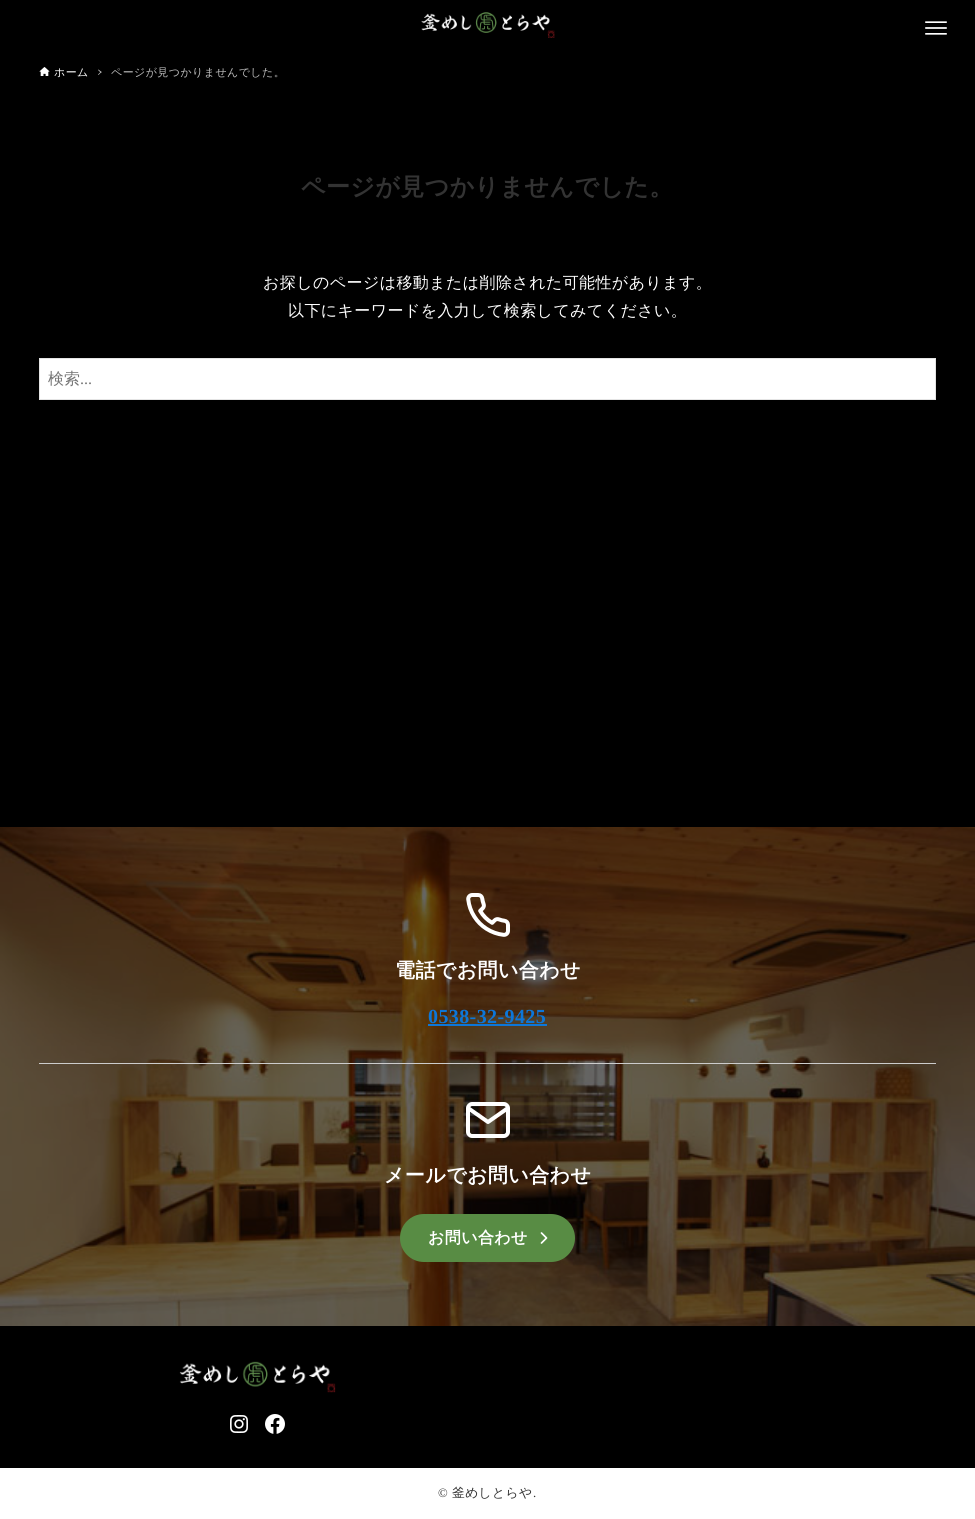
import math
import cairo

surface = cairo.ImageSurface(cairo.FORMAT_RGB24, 975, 1519)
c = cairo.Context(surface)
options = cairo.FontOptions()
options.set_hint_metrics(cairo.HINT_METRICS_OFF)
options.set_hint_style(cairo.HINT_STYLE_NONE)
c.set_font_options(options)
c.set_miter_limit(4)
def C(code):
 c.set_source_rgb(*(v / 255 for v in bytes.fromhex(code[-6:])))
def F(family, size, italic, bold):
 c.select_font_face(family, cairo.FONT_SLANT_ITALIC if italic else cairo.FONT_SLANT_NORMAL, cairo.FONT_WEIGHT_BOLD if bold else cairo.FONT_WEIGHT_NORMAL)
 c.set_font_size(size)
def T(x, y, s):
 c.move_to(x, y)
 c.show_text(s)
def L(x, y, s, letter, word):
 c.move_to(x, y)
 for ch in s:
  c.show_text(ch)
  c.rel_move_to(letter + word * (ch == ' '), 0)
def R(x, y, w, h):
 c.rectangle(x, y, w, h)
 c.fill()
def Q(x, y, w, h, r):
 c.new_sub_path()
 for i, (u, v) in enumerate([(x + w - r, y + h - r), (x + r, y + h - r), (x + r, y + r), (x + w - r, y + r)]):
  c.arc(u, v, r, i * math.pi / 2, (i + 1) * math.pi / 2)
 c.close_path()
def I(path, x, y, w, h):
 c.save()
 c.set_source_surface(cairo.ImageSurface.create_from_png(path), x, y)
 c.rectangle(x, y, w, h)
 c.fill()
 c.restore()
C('ffffff')
c.paint()
C('000000')
R(0,0,975,827)
I('1.png',421,12,134,26)
I('2.png',925,21,22,14)
I('3.png',39,67,11,9)
F('WenQuanYi Zen Hei Medium',11,0,0)
C('ffffff')
L(54,76,'ホーム',.4,0)
C('bfbfbf')
c.new_path()
c.move_to(98.5,69.5)
c.line_to(101.5,72)
c.line_to(101,73)
c.line_to(98,70)
c.close_path()
c.fill()
c.new_path()
c.move_to(101,71.5)
c.line_to(101.5,72)
c.line_to(98.5,75)
c.line_to(98,74.5)
c.close_path()
c.fill()
L(111,76,'ページが見つかりませんでした。',.4,0)
F('WenQuanYi Zen Hei',24,0,1)
C('333333')
L(301,195,'ページが見つかりませんでした。',.4,0)
F('WenQuanYi Zen Hei Medium',16,0,0)
C('ffffff')
L(263,288,'お探しのページは移動または削除された可能性があります。',.4,0)
L(288,316,'以下にキーワードを入力して検索してみてください。',.4,0)
c.rectangle(39.5,358.5,896,41)
c.fill_preserve()
C('e4e4e4')
c.set_line_width(1)
c.stroke()
C('757575')
T(48,384,'検索')
F('Liberation Serif',16,0,0)
T(80,384,'...')
I('4.png',0,827,975,499)
C('cccccc')
R(39,1063,897,1)
I('5.png',466,893,44,44)
F('WenQuanYi Zen Hei',20,0,1)
C('ffffff')
L(395,977,'電話でお問い合わせ',.4,0)
F('Liberation Serif',20,0,1)
C('0d77d9')
L(428,1023,'0538-32-9425',.4,0)
R(428,1024,119,2)
c.new_path()
c.move_to(472,1104)
c.line_to(504,1104)
c.curve_to(506,1104,508,1106,508,1108)
c.line_to(508,1132)
c.curve_to(508,1134,506,1136,504,1136)
c.line_to(472,1136)
c.curve_to(470,1136,468,1134,468,1132)
c.line_to(468,1108)
c.curve_to(468,1106,470,1104,472,1104)
c.close_path()
c.move_to(508,1108)
c.line_to(488,1122)
c.line_to(468,1108)
C('ffffff')
c.set_line_width(4)
c.set_line_cap(cairo.LINE_CAP_ROUND)
c.set_line_join(cairo.LINE_JOIN_ROUND)
c.stroke()
F('WenQuanYi Zen Hei',20,0,1)
L(384,1182,'メールでお問い合わせ',.4,0)
C('588c44')
Q(400,1214,175,48,24)
c.fill()
F('WenQuanYi Zen Hei',16,0,1)
C('ffffff')
L(428,1243,'お問い合わせ',.4,0)
c.new_path()
c.move_to(541.5,1243)
c.line_to(546.5,1238)
c.line_to(541.5,1233)
c.set_line_width(1.7)
c.stroke()
C('000000')
R(0,1326,975,142)
I('6.png',179,1361,157,32)
I('7.png',230,1415,18,18)
I('8.png',265,1414,20,20)
F('Liberation Serif',12.75,0,0)
C('333333')
L(438,1497,'©',.4,0)
F('WenQuanYi Zen Hei Medium',12.75,0,0)
L(452,1497,'釜めしとらや',.4,0)
F('Liberation Serif',12.75,0,0)
L(533,1497,'.',.4,0)
surface.write_to_png('o.png')
